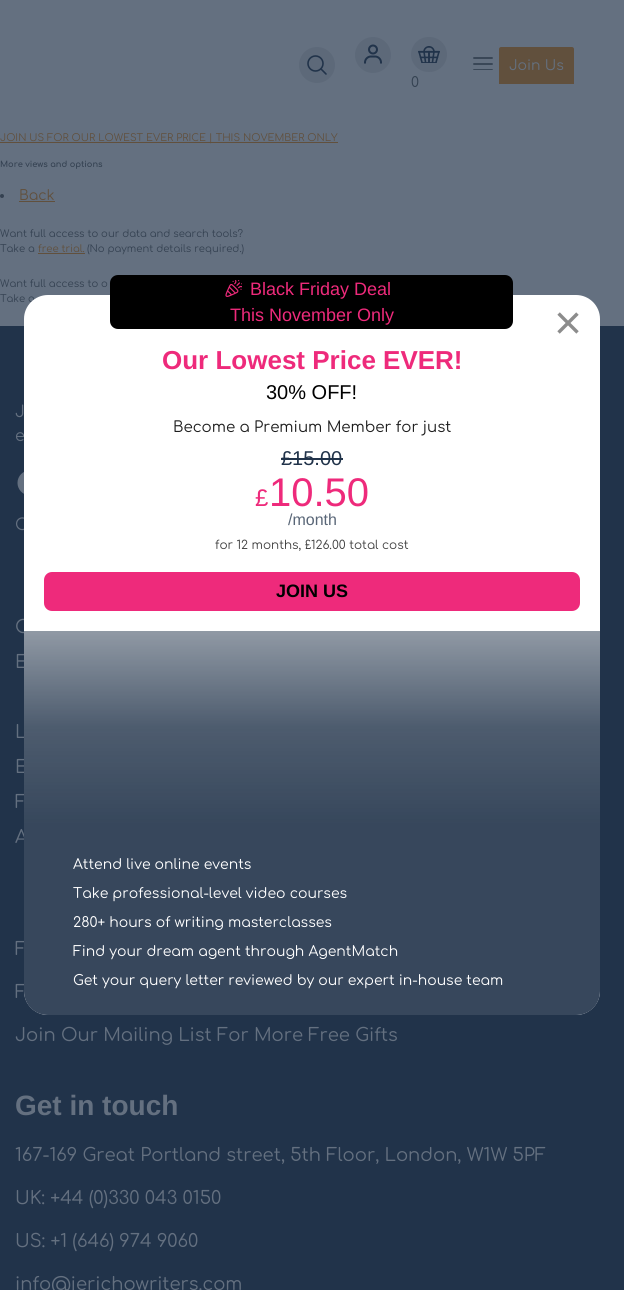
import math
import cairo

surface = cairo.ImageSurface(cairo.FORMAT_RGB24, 624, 1290)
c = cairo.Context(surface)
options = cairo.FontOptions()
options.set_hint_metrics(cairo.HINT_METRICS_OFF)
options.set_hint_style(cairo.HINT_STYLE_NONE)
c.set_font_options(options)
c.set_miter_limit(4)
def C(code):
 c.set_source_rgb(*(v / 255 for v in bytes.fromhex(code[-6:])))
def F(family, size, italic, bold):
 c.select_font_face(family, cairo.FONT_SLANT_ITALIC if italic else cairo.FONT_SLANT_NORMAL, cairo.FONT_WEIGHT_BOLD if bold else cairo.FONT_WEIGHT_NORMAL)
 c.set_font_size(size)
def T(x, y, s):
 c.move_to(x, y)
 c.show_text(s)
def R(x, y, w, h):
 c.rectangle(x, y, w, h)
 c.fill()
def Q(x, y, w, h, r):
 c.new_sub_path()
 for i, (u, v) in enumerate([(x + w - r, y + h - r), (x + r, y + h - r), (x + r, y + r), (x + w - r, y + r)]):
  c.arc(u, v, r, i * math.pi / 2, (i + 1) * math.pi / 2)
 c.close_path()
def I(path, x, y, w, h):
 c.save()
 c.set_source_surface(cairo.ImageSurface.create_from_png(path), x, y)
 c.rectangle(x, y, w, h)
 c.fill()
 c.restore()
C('647080')
c.paint()
C('5d6979')
c.arc(317,65,18,0,2 * math.pi)
c.fill()
c.arc(315.5,63.5,7.5,0,2 * math.pi)
C('21334a')
c.set_line_width(1.6)
c.stroke()
c.new_path()
c.move_to(321,69)
c.line_to(326,74)
c.set_line_cap(cairo.LINE_CAP_ROUND)
c.stroke()
C('61503d')
c.new_path()
c.move_to(501,47)
c.line_to(572,47)
c.curve_to(573,47,574,48,574,49)
c.line_to(574,84)
c.line_to(499,84)
c.line_to(499,49)
c.curve_to(499,48,500,47,501,47)
c.close_path()
c.fill()
F('Comfortaa',14,0,0)
C('647080')
T(509,70,'Join Us')
C('5d6979')
c.new_path()
c.arc(373,55,18,0,2 * math.pi)
c.fill()
I('1.png',364,44,18,20)
c.new_path()
c.move_to(474,58)
c.line_to(492,58)
c.move_to(474,64)
c.line_to(492,64)
C('344151')
c.set_line_width(1.8)
c.stroke()
c.save()
c.rectangle(473,57,20,13)
c.clip()
c.new_path()
c.move_to(474,70)
c.line_to(492,70)
c.stroke()
c.restore()
C('5d6979')
Q(411,37,36,35,17.5)
c.fill()
I('2.png',418,46,22,17)
C('344151')
T(411,87,'0')
C('61503d')
R(0,142,338,1)
F('Comfortaa',10,0,0)
T(0,141,'JOIN US FOR OUR LOWEST EVER PRICE | THIS NOVEMBER ONLY')
C('344151')
T(0,302,'Take a')
C('21334a')
R(0,326,624,964)
F('Comfortaa',16,0,0)
C('647080')
T(15,441,'e')
T(15,530,'C')
F('Comfortaa',18,0,0)
T(15,633,'C')
T(15,668,'E')
T(15,738,'L')
T(15,773,'E')
T(15,808,'F')
T(15,843,'A')
T(15,955,'F')
T(15,998,'F')
C('ffffff')
Q(24,295,576,720,24)
c.fill()
C('000000')
Q(110,275,403,54,8)
c.fill()
I('3.png',225,280,17,17)
F('Liberation Sans',18,0,0)
C('ee2a7b')
T(250,295,'Black Friday Deal')
T(230,321,'This November Only')
F('Liberation Sans',48,0,0)
C('8c8c8c')
T(554,339,'×')
F('Liberation Sans',26,0,1)
C('ee2a7b')
T(162,369,'Our Lowest Price EVER!')
F('Liberation Sans',20,0,0)
C('000000')
T(266,399,'30% OFF!')
F('Comfortaa',15,0,0)
C('1e1e1e')
T(173,432,'Become a Premium Member for just')
F('Liberation Sans',20,0,0)
C('21334a')
T(281,465,'£15.00')
R(281,458,62,2)
F('Liberation Sans',24,0,0)
C('ee2a7b')
T(255,506,'£')
F('Liberation Sans',40,0,0)
T(269,506,'10.50')
F('Liberation Sans',16,0,0)
C('596677')
T(288,525,'/month')
F('Comfortaa',12,0,0)
C('404040')
T(215,549,'for 12 months, £126.00 total cost')
C('ee2a7b')
Q(44,572,536,39,8)
c.fill()
F('Liberation Sans',18,0,1)
C('000000')
T(276,597,'JOIN US')
gradient = cairo.LinearGradient(312,1015,312,631)
gradient.add_color_stop_rgba(.5,0.129,0.2,0.29,.9)
gradient.add_color_stop_rgba(.75,0.129,0.2,0.29,.8)
gradient.add_color_stop_rgba(1,0.129,0.2,0.29,.5)
c.set_source(gradient)
c.new_path()
c.move_to(24,631)
c.line_to(600,631)
c.line_to(600,991)
c.curve_to(600,1004.5,589.5,1015,576,1015)
c.line_to(48,1015)
c.curve_to(34.5,1015,24,1004.5,24,991)
c.close_path()
c.fill()
F('Comfortaa',14,0,0)
C('ffffff')
T(73,869,'Attend live online events')
T(73,898,'Take professional-level video courses')
T(73,927,'280+ hours of writing masterclasses')
T(73,956,'Find your dream agent through AgentMatch')
T(73,985,'Get your query letter reviewed by our expert in-house team')
F('Comfortaa',8.25,0,1)
C('344151')
T(0,167,'More views and options')
c.new_path()
c.arc(2,196,2,0,2 * math.pi)
c.fill()
F('Comfortaa',14,0,0)
C('61503d')
T(19,200,'Back')
R(19,201,36,1)
F('Comfortaa',10,0,0)
C('344151')
T(0,237,'Want full access to our data and search tools?')
T(0,252,'Take a')
C('61503d')
T(38,252,'free trial.')
R(38,253,47,1)
C('344151')
T(87,252,'(No payment details required.)')
T(0,287,'Want full access to o')
F('Comfortaa',16,0,0)
C('647080')
T(15,417,'J')
I('4.png',17,472,7,22)
F('Comfortaa',18,0,0)
T(15,1041,'Join Our Mailing List For More Free Gifts')
F('Liberation Sans',28,0,1)
T(15,1115,'Get in touch')
F('Comfortaa',18,0,0)
T(15,1161,'167-169 Great Portland street, 5th Floor, London, W1W 5PF')
T(15,1204,'UK: +44 (0)330 043 0150')
T(15,1247,'US: +1 (646) 974 9060')
T(15,1290,'info@jerichowriters.com')
surface.write_to_png('o.png')
